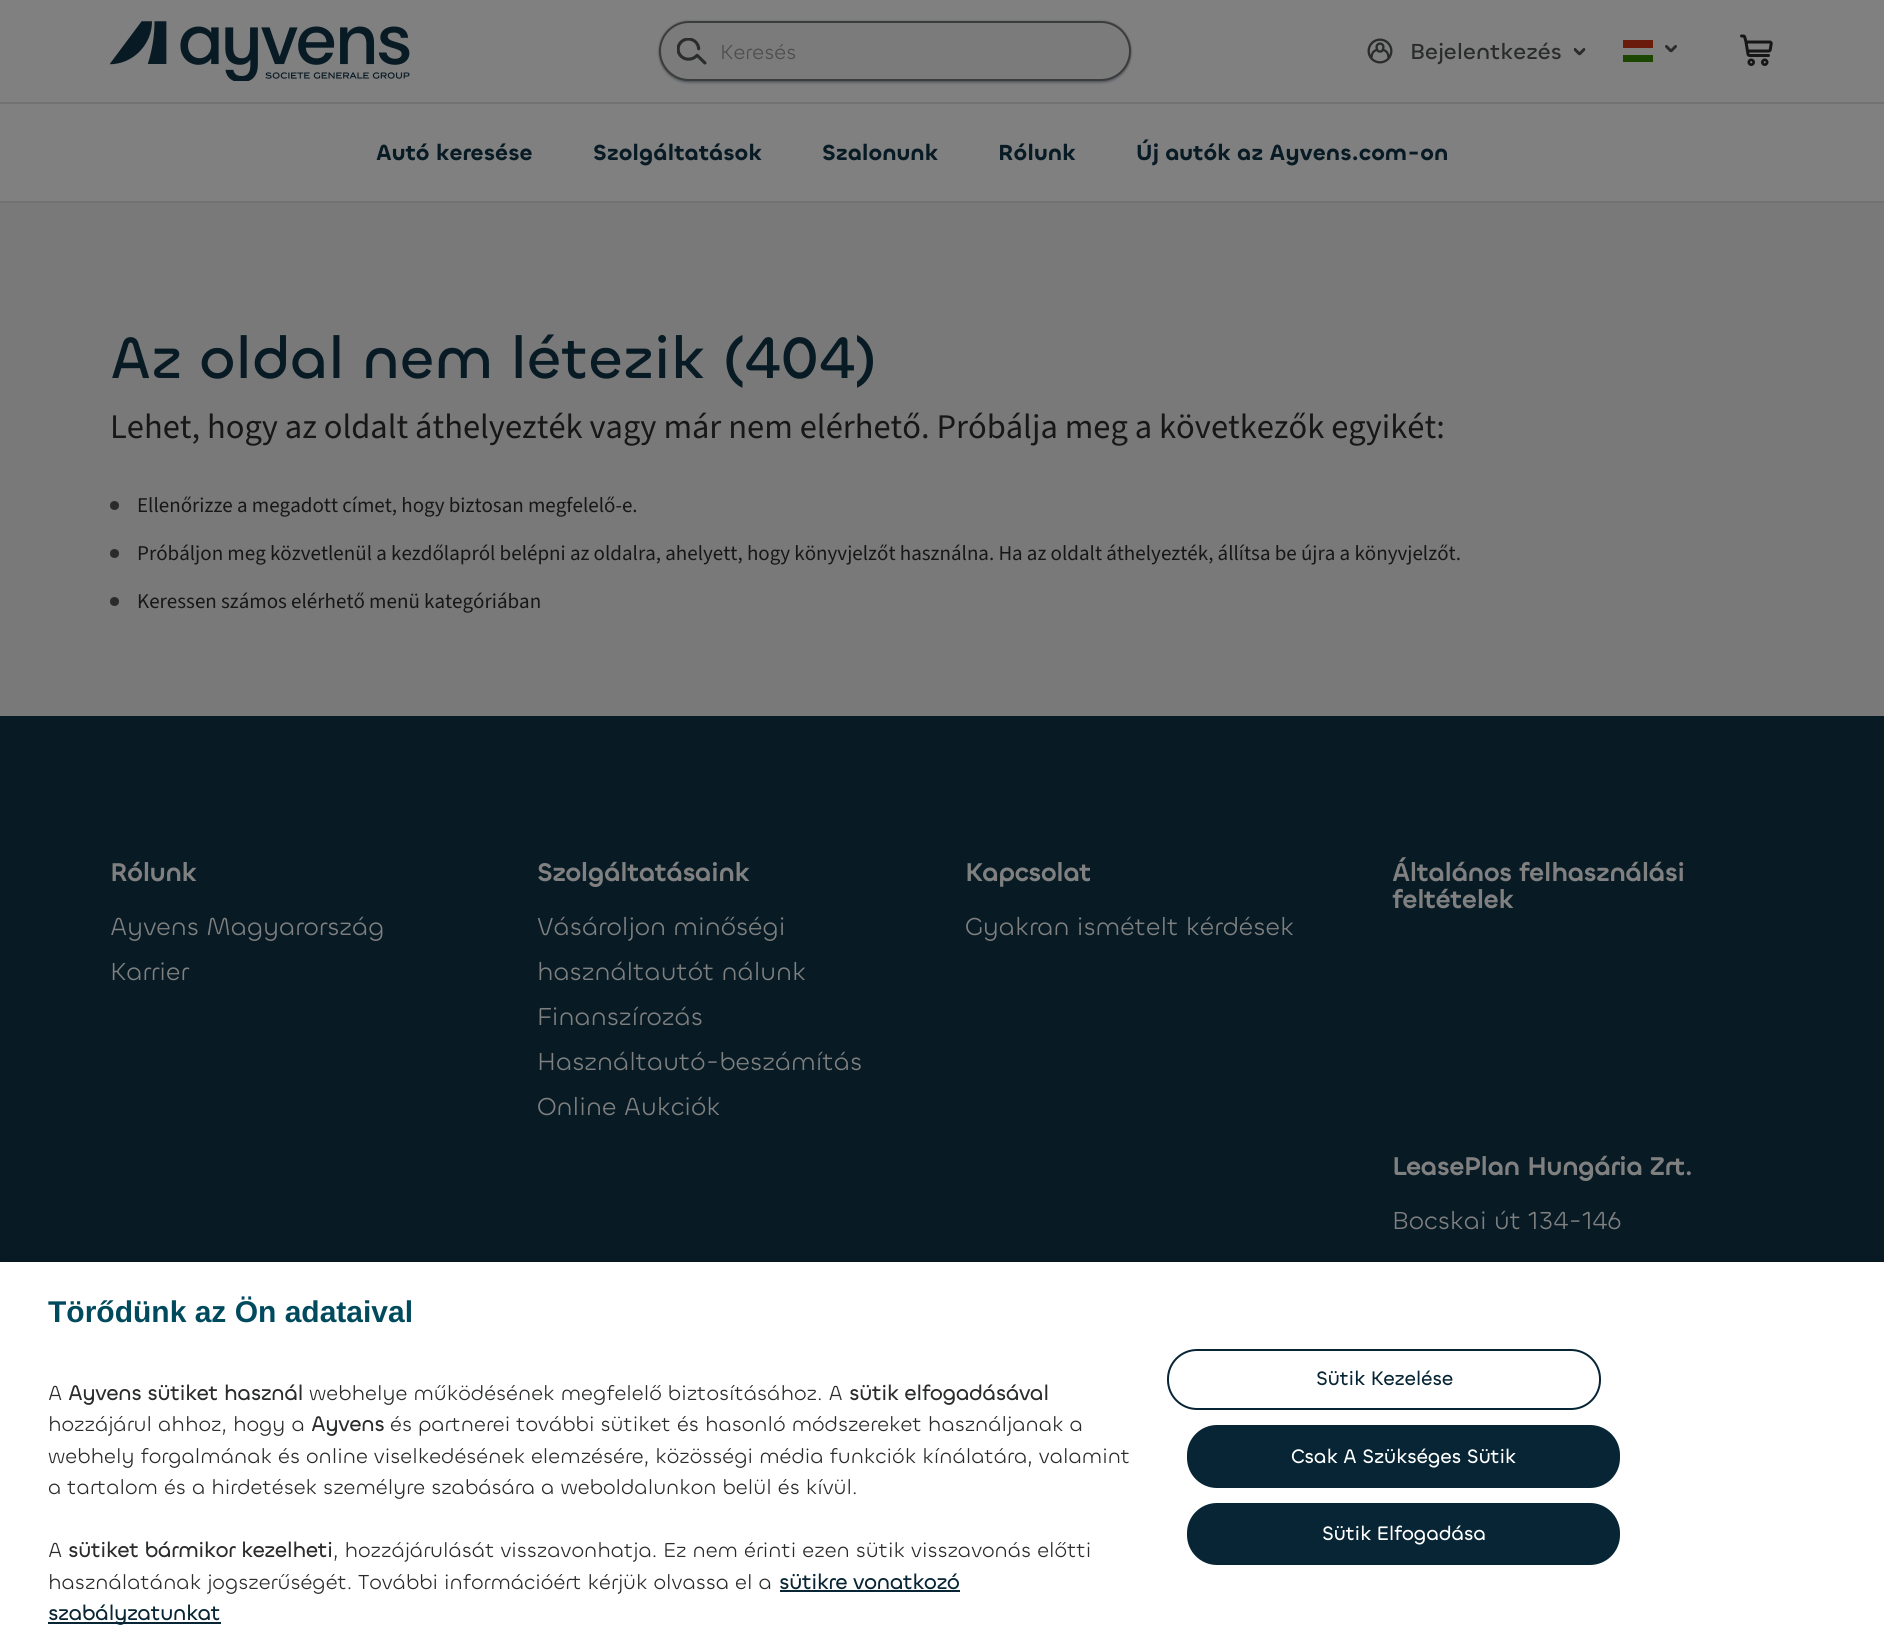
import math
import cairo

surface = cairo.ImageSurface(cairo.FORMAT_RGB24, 1884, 1644)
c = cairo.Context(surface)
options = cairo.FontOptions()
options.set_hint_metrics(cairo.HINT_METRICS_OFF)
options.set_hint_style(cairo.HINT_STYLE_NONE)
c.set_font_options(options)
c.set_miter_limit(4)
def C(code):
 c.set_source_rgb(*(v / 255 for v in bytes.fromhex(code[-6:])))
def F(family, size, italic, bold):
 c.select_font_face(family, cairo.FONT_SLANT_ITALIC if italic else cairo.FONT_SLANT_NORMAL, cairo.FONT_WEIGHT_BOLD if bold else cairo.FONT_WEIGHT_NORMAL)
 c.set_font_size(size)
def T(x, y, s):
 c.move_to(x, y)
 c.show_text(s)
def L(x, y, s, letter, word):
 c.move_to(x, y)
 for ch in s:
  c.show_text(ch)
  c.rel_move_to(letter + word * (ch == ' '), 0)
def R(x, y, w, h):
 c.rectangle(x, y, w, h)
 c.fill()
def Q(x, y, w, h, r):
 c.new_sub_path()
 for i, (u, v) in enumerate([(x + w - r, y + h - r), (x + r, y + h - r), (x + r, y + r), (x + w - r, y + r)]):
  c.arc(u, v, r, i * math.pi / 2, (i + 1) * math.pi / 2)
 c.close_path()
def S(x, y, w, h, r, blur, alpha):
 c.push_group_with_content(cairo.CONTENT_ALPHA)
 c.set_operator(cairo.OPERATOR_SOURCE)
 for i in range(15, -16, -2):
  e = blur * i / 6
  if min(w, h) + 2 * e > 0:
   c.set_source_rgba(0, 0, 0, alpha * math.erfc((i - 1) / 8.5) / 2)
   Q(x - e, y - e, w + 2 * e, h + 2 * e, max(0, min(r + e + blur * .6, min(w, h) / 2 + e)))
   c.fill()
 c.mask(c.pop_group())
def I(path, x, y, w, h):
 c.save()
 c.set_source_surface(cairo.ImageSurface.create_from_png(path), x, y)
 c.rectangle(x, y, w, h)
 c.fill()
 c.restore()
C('797979')
c.paint()
C('808080')
R(0,0,1884,201)
I('1.png',110,21,300,60)
C('050f21')
S(659,21,472,60,30,1,.3)
S(659,23,472,60,30,1,.25)
C('7b7b7b')
Q(660,22,470,58,29)
c.fill_preserve()
C('3b3c3c')
c.stroke()
I('2.png',677,38,30,27)
F('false',21,0,0)
C('4c4d4d')
T(720,59,'Keresés')
I('3.png',1367,38,26,26)
F('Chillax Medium',22.5,0,0)
C('2a2b2b')
T(1410,59,'Bejelentkezés')
I('4.png',1574,48,12,8)
C('1c4700')
R(1623,55,30,7)
C('6a1b0b')
R(1623,40,30,8)
I('5.png',1665,45,12,8)
I('6.png',1740,34,33,32)
C('717273')
R(0,102,1884,2)
R(0,201,1884,2)
F('Chillax SemiBold',22.5,0,0)
C('081b25')
T(376,160,'Autó keresése')
T(593,160,'Szolgáltatások')
T(822,160,'Szalonunk')
T(998,160,'Rólunk')
T(1136,160,'Új autók az Ayvens.com-on')
F('Chillax Medium',60,0,0)
T(110,378,'Az oldal nem létezik (404)')
F('Source Sans 3',34.5,0,0)
C('171717')
T(110,438,'Lehet, hogy az oldalt áthelyezték vagy már nem elérhető. Próbálja meg a következők egyikét:')
C('2a2b2b')
c.new_path()
c.arc(114.5,505.5,4.5,0,2 * math.pi)
c.fill()
F('Source Sans 3',21,0,0)
C('171717')
T(137,512,'Ellenőrizze a megadott címet, hogy biztosan megfelelő-e.')
C('2a2b2b')
c.new_path()
c.arc(114.5,553.5,4.5,0,2 * math.pi)
c.fill()
C('171717')
T(137,560,'Próbáljon meg közvetlenül a kezdőlapról belépni az oldalra, ahelyett, hogy könyvjelzőt használna. Ha az oldalt áthelyezték, állítsa be újra a könyvjelzőt.')
C('2a2b2b')
c.new_path()
c.arc(114.5,601.5,4.5,0,2 * math.pi)
c.fill()
C('171717')
T(137,608,'Keressen számos elérhető menü kategóriában')
C('081b25')
R(0,716,1884,546)
F('Chillax',25.5,0,1)
C('808080')
T(110,881,'Rólunk')
F('false',25.5,0,0)
T(110,935,'Ayvens Magyarország')
T(110,980,'Karrier')
F('Chillax',25.5,0,1)
T(537,881,'Szolgáltatásaink')
F('false',25.5,0,0)
T(537,935,'Vásároljon minőségi')
T(537,980,'használtautót nálunk')
T(537,1025,'Finanszírozás')
T(537,1070,'Használtautó-beszámítás')
T(537,1115,'Online Aukciók')
F('Chillax',25.5,0,1)
T(965,881,'Kapcsolat')
F('false',25.5,0,0)
T(965,935,'Gyakran ismételt kérdések')
F('Chillax',25.5,0,1)
T(1392,881,'Általános felhasználási')
T(1392,908,'feltételek')
T(1392,1175,'LeasePlan Hungária Zrt.')
F('false',25.5,0,0)
T(1392,1229,'Bocskai út 134-146')
C('000000')
S(0,1262,1884,382,0,13.5,.2)
C('ffffff')
R(0,1262,1884,382)
F('Liberation Sans',30,0,1)
C('004a5d')
T(48,1322,'Törődünk az Ön adataival')
F('false',21,0,0)
C('2a2b2b')
T(48,1400,'A')
F('false',21,0,1)
T(68,1400,'Ayvens sütiket használ')
F('false',21,0,0)
T(309,1400,'webhelye működésének megfelelő biztosításához. A')
F('false',21,0,1)
T(849,1400,'sütik elfogadásával')
F('false',21,0,0)
T(48,1431,'hozzájárul ahhoz, hogy a')
F('false',21,0,1)
T(311,1431,'Ayvens')
F('false',21,0,0)
T(390,1431,'és partnerei további sütiket és hasonló módszereket használjanak a')
T(48,1463,'webhely forgalmának és online viselkedésének elemzésére, közösségi média funkciók kínálatára, valamint')
T(48,1494,'a tartalom és a hirdetések személyre szabására a weboldalunkon belül és kívül.')
T(48,1557,'A')
F('false',21,0,1)
T(68,1557,'sütiket bármikor kezelheti')
F('false',21,0,0)
T(333,1557,', hozzájárulását visszavonhatja. Ez nem érinti ezen sütik visszavonás előtti')
T(48,1589,'használatának jogszerűségét. További információért kérjük olvassa el a')
F('false',21,0,1)
C('072534')
T(779,1589,'sütikre vonatkozó')
R(780,1590,180,2)
R(48,1622,173,2)
T(48,1620,'szabályzatunkat')
Q(1168,1350,432,59,29)
c.stroke()
F('false',19.5,0,1)
L(1316,1385,'Sütik Kezelése',.2,0)
Q(1188,1426,431,61,29)
c.fill_preserve()
c.stroke()
C('ffffff')
L(1291,1463,'Csak A Szükséges Sütik',.2,0)
C('072534')
Q(1188,1504,431,60,29)
c.fill_preserve()
c.stroke()
C('ffffff')
L(1322,1540,'Sütik Elfogadása',.2,0)
surface.write_to_png('o.png')
